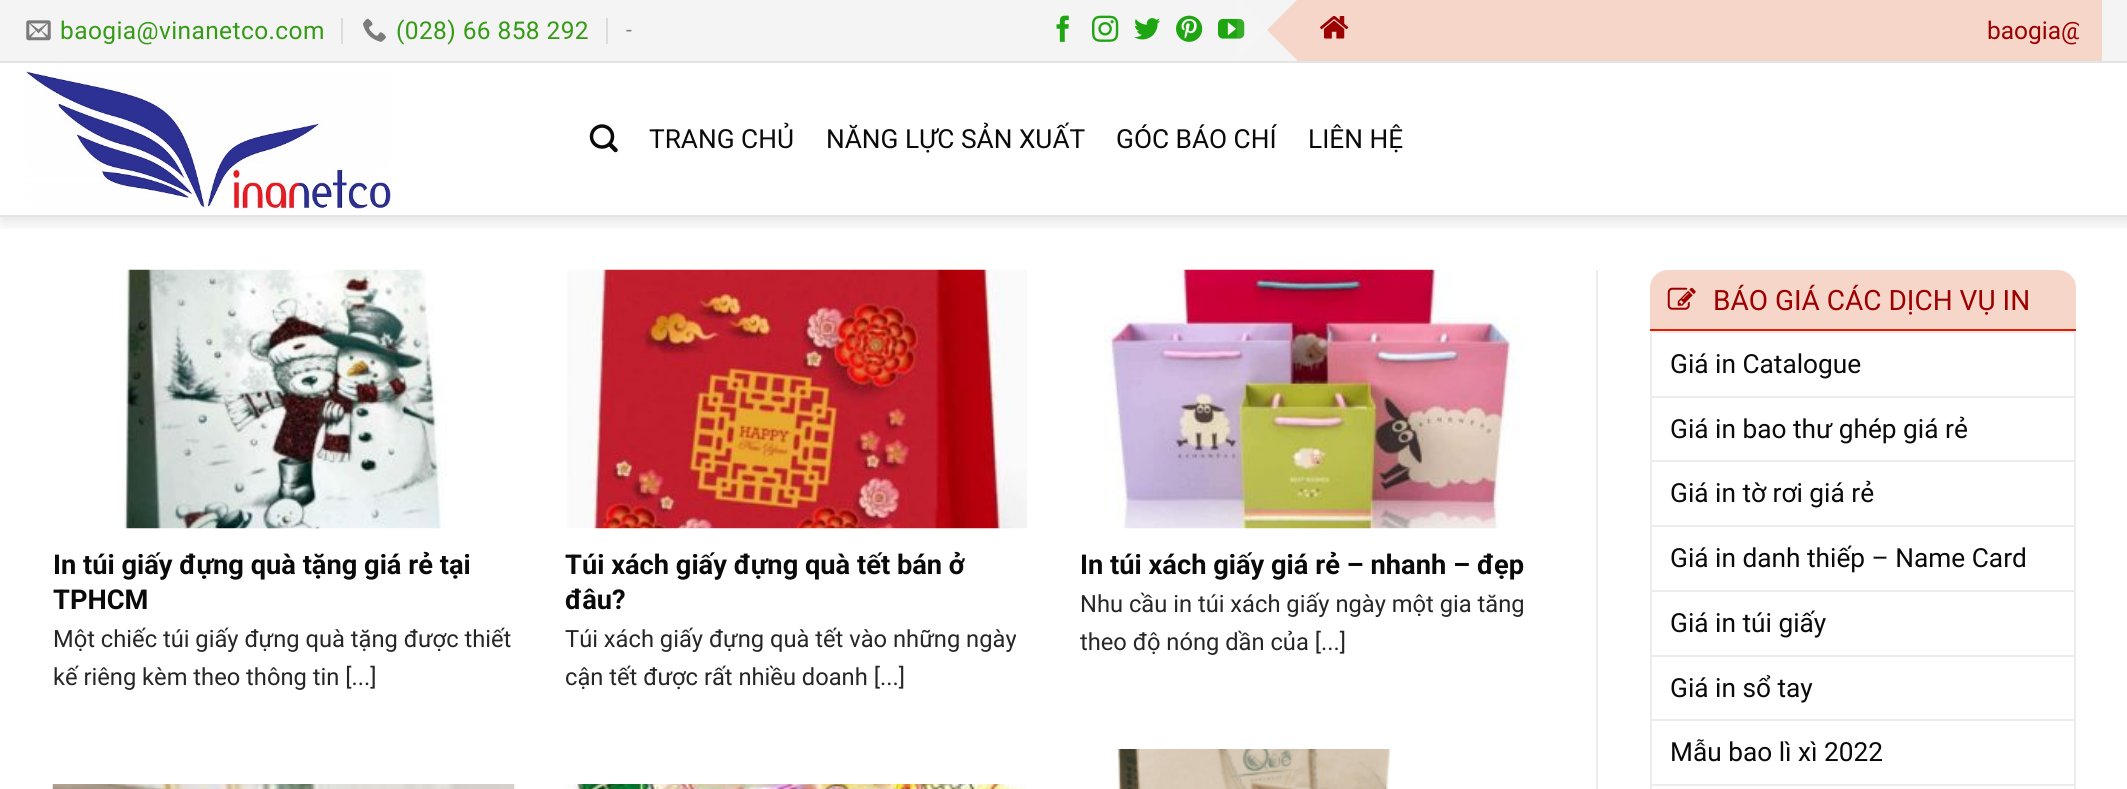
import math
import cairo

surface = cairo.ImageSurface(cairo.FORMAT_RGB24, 2127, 789)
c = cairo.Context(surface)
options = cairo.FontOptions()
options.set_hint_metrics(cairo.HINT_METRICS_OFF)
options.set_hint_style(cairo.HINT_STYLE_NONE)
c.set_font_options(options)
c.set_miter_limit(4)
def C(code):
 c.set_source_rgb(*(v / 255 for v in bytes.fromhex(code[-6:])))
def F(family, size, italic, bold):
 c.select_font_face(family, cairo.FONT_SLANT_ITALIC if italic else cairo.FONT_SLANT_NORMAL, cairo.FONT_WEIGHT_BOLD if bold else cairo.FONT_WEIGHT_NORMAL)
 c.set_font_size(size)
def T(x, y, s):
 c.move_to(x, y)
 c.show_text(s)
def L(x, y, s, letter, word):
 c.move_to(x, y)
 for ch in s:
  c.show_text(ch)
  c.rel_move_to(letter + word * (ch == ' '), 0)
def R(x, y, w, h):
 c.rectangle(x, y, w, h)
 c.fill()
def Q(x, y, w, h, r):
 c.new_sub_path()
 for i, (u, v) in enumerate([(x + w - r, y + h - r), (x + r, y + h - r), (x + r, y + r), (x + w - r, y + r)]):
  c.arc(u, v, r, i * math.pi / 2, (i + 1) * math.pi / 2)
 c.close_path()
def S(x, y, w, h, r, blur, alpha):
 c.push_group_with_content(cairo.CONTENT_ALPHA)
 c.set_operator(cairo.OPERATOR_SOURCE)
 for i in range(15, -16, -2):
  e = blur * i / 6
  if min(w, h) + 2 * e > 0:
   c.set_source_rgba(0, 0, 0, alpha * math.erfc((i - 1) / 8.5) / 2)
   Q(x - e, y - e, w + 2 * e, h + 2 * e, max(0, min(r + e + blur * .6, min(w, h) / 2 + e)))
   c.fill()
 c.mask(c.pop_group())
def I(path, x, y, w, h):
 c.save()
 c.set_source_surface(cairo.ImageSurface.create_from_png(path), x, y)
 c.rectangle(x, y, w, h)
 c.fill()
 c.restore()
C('ffffff')
c.paint()
c.save()
c.rectangle(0,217,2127,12)
c.clip()
C('000000')
S(2,2,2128,217,0,9,.15)
c.restore()
C('f4f4f4')
R(0,0,2127,61)
C('e4e4e4')
R(0,61,2127,2)
I('1.png',26,20,25,21)
F('Roboto',24.5,0,0)
C('359a15')
L(60,39,'baogia@vinanetco.com',.4,0)
C('dcdcdc')
R(341,18,2,26)
I('2.png',363,18,23,24)
C('359a15')
L(396,39,'(028) 66 858 292',.4,0)
C('dcdcdc')
R(606,18,2,26)
F('Roboto',21,0,0)
C('7b7b7b')
T(626,37,'-')
I('3.png',1056,15,13,27)
I('4.png',1092,15,27,27)
I('5.png',1134,18,27,22)
I('6.png',1176,15,27,27)
I('7.png',1218,18,27,21)
C('f7d6ca')
R(1297,0,805,61)
c.new_path()
c.move_to(1297,0)
c.line_to(1297,60)
c.line_to(1267,30)
c.close_path()
c.fill()
c.set_source_rgba(1,1,1,0.1)
c.new_path()
c.move_to(1237,60)
c.line_to(1237,0)
c.line_to(1267,30)
c.close_path()
c.fill()
I('8.png',1320,16,29,23)
c.save()
c.rectangle(1388,0,691,61)
c.clip()
F('Roboto',24.5,0,0)
C('9c0000')
T(1987,39,'baogia@')
c.restore()
C('e4e4e4')
R(0,215,2127,2)
I('9.png',26,71,365,138)
I('10.png',589,124,29,29)
F('Roboto',26.25,0,0)
C('0a0a0a')
T(649,148,'TRANG CHỦ')
T(826,148,'NĂNG LỰC SẢN XUẤT')
T(1116,148,'GÓC BÁO CHÍ')
T(1308,148,'LIÊN HỆ')
I('11.png',124,269,323,260)
F('Roboto',27.25,0,1)
T(53,574,'In túi giấy đựng quà tặng giá rẻ tại')
T(53,609,'TPHCM')
F('Roboto',23.7,0,0)
C('262626')
T(53,647,'Một chiếc túi giấy đựng quà tặng được thiết')
T(53,685,'kế riêng kèm theo thông tin [...]')
I('12.png',567,269,460,260)
F('Roboto',27.25,0,1)
C('0a0a0a')
T(565,574,'Túi xách giấy đựng quà tết bán ở')
T(565,609,'đâu?')
F('Roboto',23.7,0,0)
C('262626')
T(565,647,'Túi xách giấy đựng quà tết vào những ngày')
T(565,685,'cận tết được rất nhiều doanh [...]')
I('13.png',1104,269,419,260)
F('Roboto',27.25,0,1)
C('0a0a0a')
T(1080,574,'In túi xách giấy giá rẻ – nhanh – đẹp')
F('Roboto',23.7,0,0)
C('262626')
T(1080,612,'Nhu cầu in túi xách giấy ngày một gia tăng')
T(1080,650,'theo độ nóng dần của [...]')
I('14.png',52,784,463,5)
I('15.png',566,784,461,5)
I('16.png',1118,749,273,40)
C('ececec')
R(1596,270,2,519)
C('f7d6ca')
c.new_path()
c.move_to(1668,270)
c.line_to(2058,270)
c.curve_to(2068,270,2076,278,2076,288)
c.line_to(2076,331)
c.line_to(1650,331)
c.line_to(1650,288)
c.curve_to(1650,278,1658,270,1668,270)
c.close_path()
c.fill()
C('e31b00')
R(1650,329,426,2)
I('17.png',1667,287,29,23)
F('Roboto',28,0,0)
C('9c0000')
T(1713,310,'BÁO GIÁ CÁC DỊCH VỤ IN')
c.rectangle(1651,332,424,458)
C('ececec')
c.stroke()
F('Roboto',26.25,0,0)
C('0a0a0a')
T(1670,373,'Giá in Catalogue')
C('ececec')
R(1652,396,422,2)
C('0a0a0a')
T(1670,438,'Giá in bao thư ghép giá rẻ')
C('ececec')
R(1652,460,422,2)
C('0a0a0a')
T(1670,502,'Giá in tờ rơi giá rẻ')
C('ececec')
R(1652,525,422,2)
C('0a0a0a')
T(1670,567,'Giá in danh thiếp – Name Card')
C('ececec')
R(1652,590,422,2)
C('0a0a0a')
T(1670,632,'Giá in túi giấy')
C('ececec')
R(1652,655,422,2)
C('0a0a0a')
T(1670,697,'Giá in sổ tay')
C('ececec')
R(1652,719,422,2)
C('0a0a0a')
T(1670,761,'Mẫu bao lì xì 2022')
C('ececec')
R(1652,784,422,2)
surface.write_to_png('o.png')
